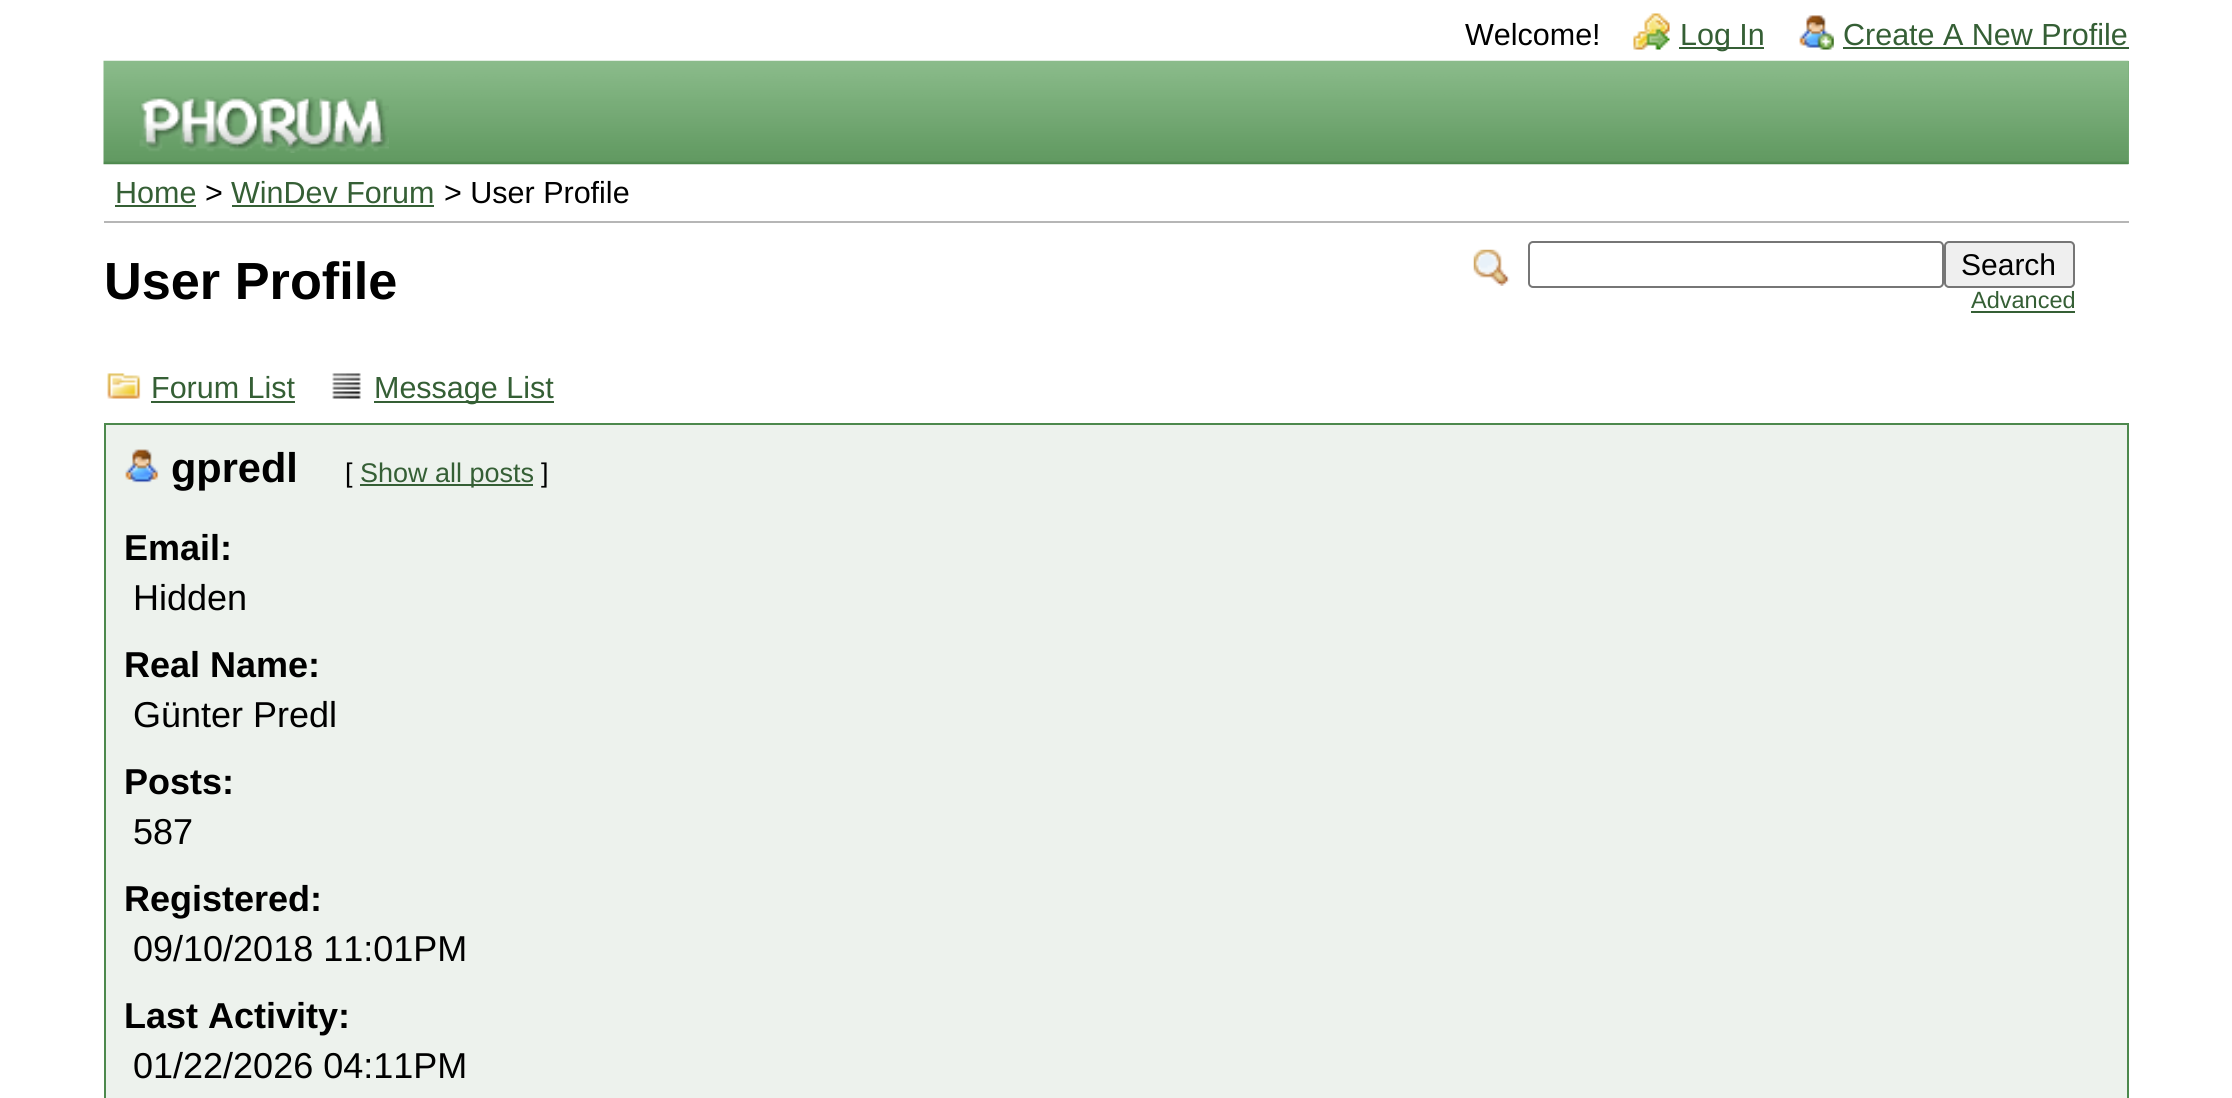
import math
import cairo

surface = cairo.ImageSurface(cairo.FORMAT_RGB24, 2232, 1098)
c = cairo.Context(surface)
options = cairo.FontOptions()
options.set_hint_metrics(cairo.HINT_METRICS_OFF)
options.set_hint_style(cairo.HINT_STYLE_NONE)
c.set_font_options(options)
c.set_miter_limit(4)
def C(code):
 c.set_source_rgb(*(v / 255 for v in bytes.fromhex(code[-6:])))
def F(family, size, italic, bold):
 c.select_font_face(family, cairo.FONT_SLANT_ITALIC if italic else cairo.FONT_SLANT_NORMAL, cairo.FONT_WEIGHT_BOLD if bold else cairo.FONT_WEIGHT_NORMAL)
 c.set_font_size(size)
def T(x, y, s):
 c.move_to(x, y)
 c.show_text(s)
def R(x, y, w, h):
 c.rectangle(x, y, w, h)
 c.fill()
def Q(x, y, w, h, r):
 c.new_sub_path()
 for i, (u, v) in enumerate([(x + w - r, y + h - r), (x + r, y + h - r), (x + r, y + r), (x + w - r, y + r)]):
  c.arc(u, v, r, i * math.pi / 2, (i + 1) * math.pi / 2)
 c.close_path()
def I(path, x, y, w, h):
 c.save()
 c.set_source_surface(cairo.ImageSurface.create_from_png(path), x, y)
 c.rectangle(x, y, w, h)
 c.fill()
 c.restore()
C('ffffff')
c.paint()
F('Liberation Sans',30.5,0,0)
C('000000')
T(1465,45,'Welcome!')
I('1.png',1633,13,37,37)
C('355f35')
R(1679,47,85,2)
T(1680,45,'Log In')
I('2.png',1799,15,35,35)
T(1843,45,'Create A New Profile')
R(1843,47,286,2)
C('78ad78')
R(2128,61,1,103)
I('3.png',103,60,2026,105)
I('4.png',139,96,250,57)
C('b6b6b6')
R(104,221,2025,2)
C('355f35')
T(115,203,'Home')
R(115,205,81,2)
C('000000')
T(205,203,'>')
C('355f35')
T(231,203,'WinDev Forum')
R(232,205,202,2)
C('000000')
T(444,203,'> User Profile')
F('Liberation Sans',52.25,0,1)
T(104,299,'User Profile')
I('5.png',1473,249,37,37)
Q(1529,242,414,45,4)
C('767676')
c.stroke()
C('efefef')
Q(1945,242,129,45,4)
c.fill_preserve()
C('767676')
c.stroke()
F('Liberation Sans',30,0,0)
C('000000')
T(1961,275,'Search')
F('Liberation Sans',23.5,0,0)
C('355f35')
T(1971,308,'Advanced')
R(1971,311,104,2)
I('6.png',107,373,34,26)
F('Liberation Sans',30.5,0,0)
T(151,398,'Forum List')
R(151,401,144,2)
I('7.png',332,373,29,26)
R(374,401,180,2)
T(374,398,'Message List')
C('edf2ed')
c.rectangle(105,424,2023,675)
c.fill_preserve()
C('4d894d')
c.stroke()
I('8.png',125,449,34,34)
F('Liberation Sans',41.5,0,1)
C('000000')
T(171,482,'gpredl')
F('Liberation Sans',27,0,0)
T(345,482,'[')
C('355f35')
R(360,484,173,2)
T(360,482,'Show all posts')
C('000000')
T(541,482,']')
F('Liberation Sans',36,0,1)
T(124,560,'Email:')
F('Liberation Sans',36,0,0)
T(133,610,'Hidden')
F('Liberation Sans',36,0,1)
T(124,677,'Real Name:')
F('Liberation Sans',36,0,0)
T(133,727,'Günter Predl')
F('Liberation Sans',36,0,1)
T(124,794,'Posts:')
F('Liberation Sans',36,0,0)
T(133,844,'587')
F('Liberation Sans',36,0,1)
T(124,911,'Registered:')
F('Liberation Sans',36,0,0)
T(133,961,'09/10/2018 11:01PM')
F('Liberation Sans',36,0,1)
T(124,1028,'Last Activity:')
F('Liberation Sans',36,0,0)
T(133,1078,'01/22/2026 04:11PM')
surface.write_to_png('o.png')
